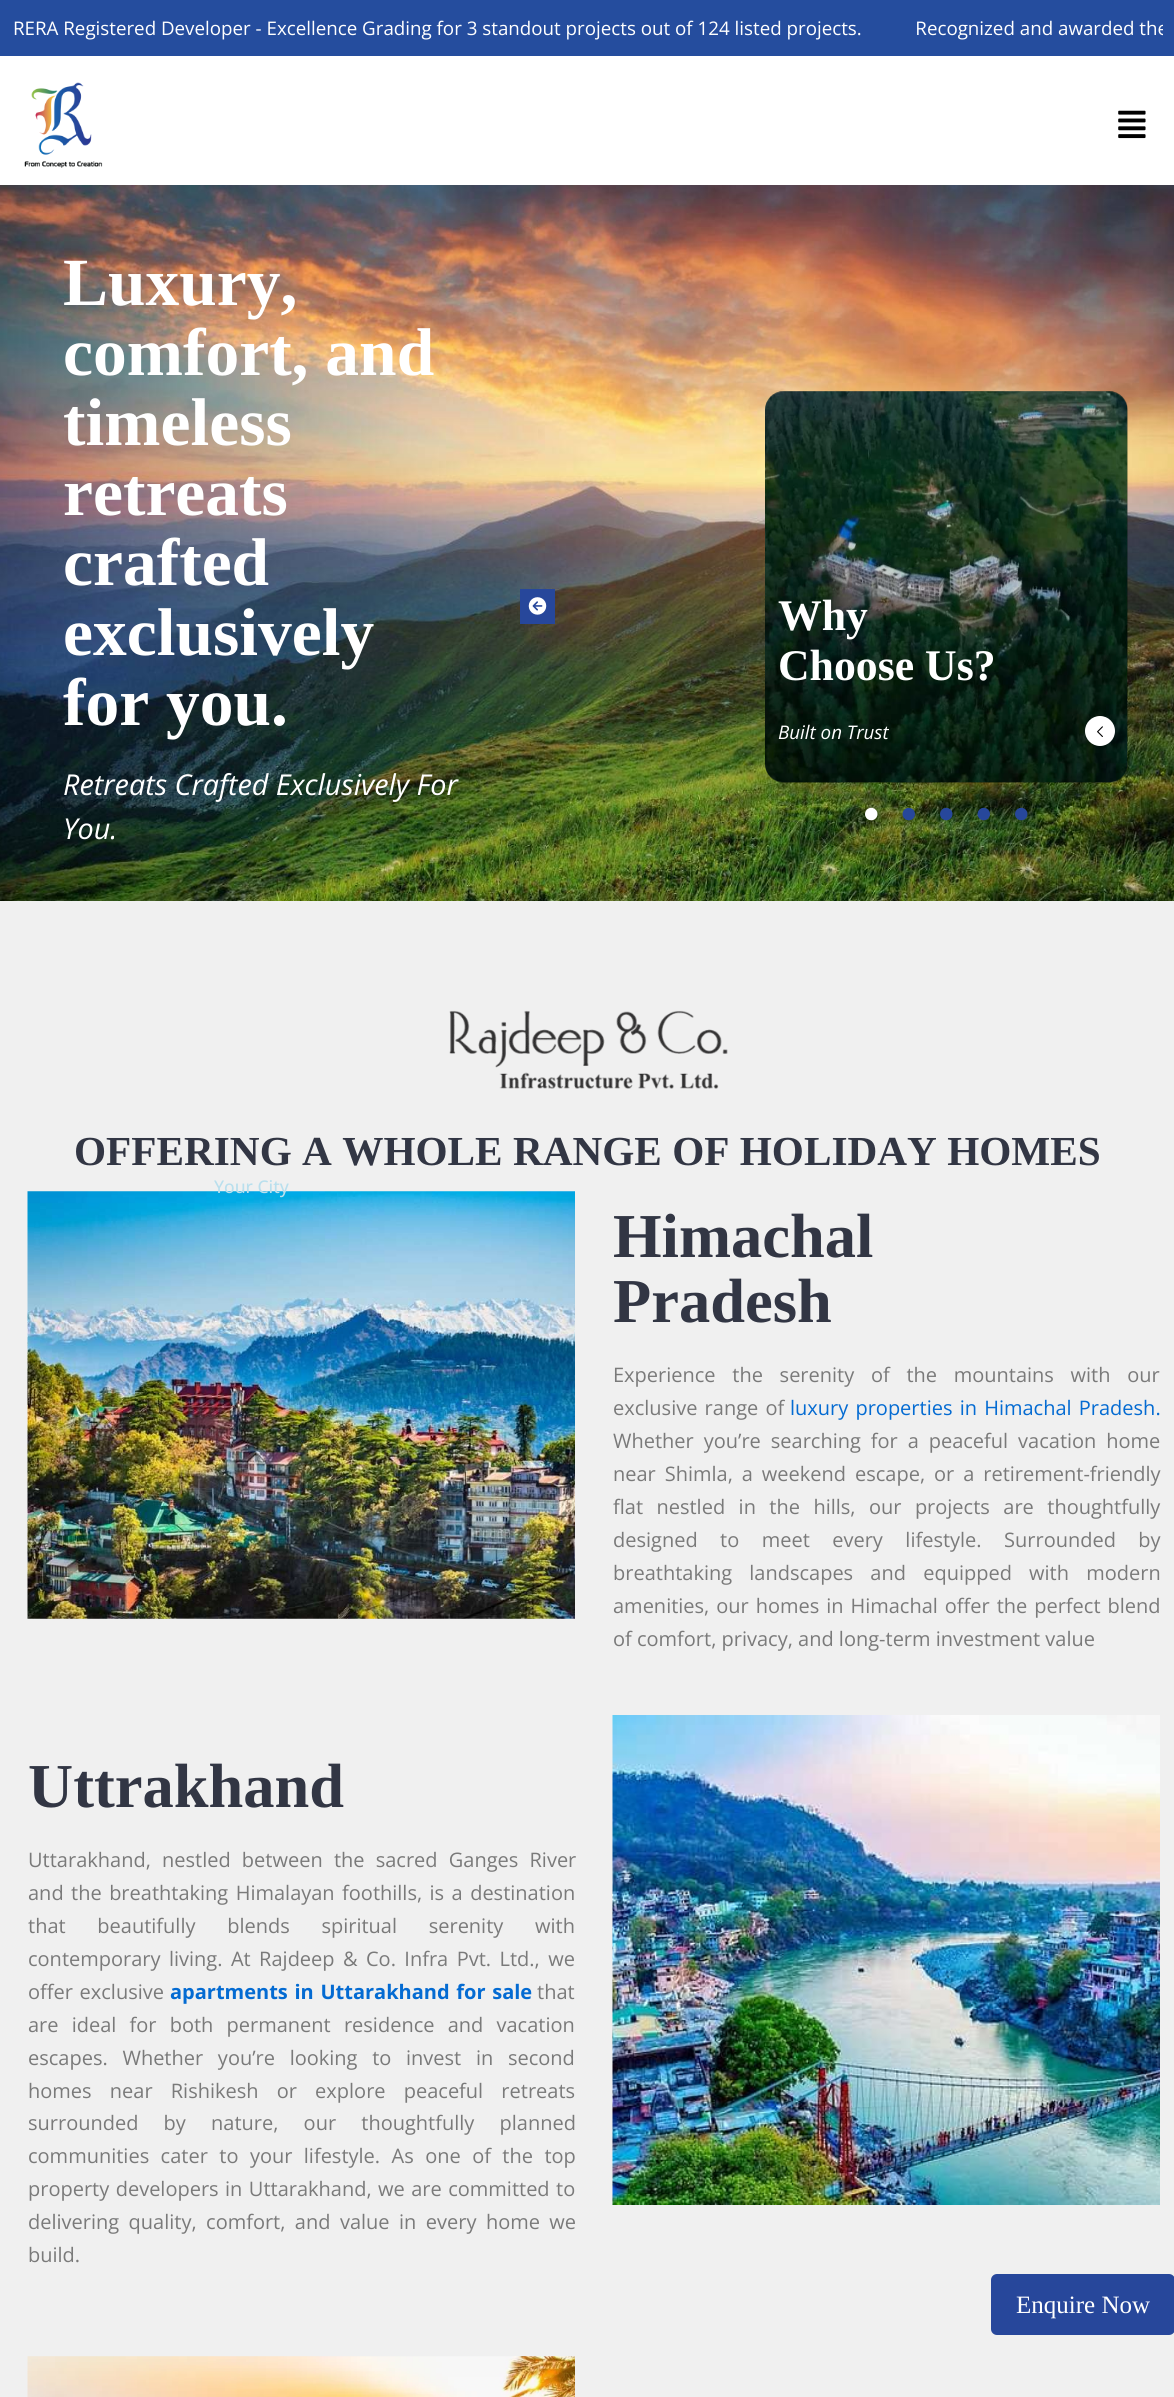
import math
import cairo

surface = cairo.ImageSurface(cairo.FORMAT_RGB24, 1174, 2397)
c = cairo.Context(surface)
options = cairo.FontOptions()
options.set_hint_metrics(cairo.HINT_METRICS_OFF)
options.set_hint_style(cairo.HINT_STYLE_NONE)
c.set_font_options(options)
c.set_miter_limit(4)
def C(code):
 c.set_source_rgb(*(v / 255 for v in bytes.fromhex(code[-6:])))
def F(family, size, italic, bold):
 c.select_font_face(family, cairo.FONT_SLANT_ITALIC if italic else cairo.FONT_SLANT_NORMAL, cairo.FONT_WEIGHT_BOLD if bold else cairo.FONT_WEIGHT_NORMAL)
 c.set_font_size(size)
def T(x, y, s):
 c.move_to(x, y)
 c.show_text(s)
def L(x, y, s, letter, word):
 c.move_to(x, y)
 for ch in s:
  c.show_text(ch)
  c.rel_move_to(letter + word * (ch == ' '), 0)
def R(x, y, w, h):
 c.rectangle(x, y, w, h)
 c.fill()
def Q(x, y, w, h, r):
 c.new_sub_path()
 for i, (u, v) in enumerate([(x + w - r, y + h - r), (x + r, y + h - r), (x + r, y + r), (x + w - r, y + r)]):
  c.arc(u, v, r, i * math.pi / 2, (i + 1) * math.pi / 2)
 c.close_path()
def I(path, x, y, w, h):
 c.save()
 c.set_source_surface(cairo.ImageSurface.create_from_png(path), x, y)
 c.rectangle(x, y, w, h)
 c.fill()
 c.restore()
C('ffffff')
c.paint()
C('254d9e')
R(0,0,1174,56)
c.save()
c.rectangle(13,13,1150,31)
c.clip()
F('Open Sans',18.75,0,0)
C('ffffff')
T(13,35,'RERA Registered Developer - Excellence Grading for 3 standout projects out of 124 listed projects.           Recognized and awarded the')
c.restore()
I('1.png',24,82,79,86)
I('2.png',1118,110,28,29)
I('3.png',0,185,1174,716)
F('Liberation Serif',67.5,0,1)
C('ffffff')
T(63,305,'Luxury,')
T(63,375,'comfort, and')
T(63,445,'timeless')
T(63,515,'retreats')
T(63,585,'crafted')
T(63,655,'exclusively')
T(63,725,'for you.')
F('Open Sans',28.75,1,0)
T(63,795,'Retreats Crafted Exclusively For')
T(63,839,'You.')
C('27479b')
R(520,589,35,35)
I('4.png',528,597,19,18)
I('5.png',765,391,363,392)
c.set_source_rgba(0,0,0,0.19)
Q(765,391,363,392,19)
c.fill()
F('Liberation Serif',43.75,0,1)
C('ffffff')
T(778,630,'Why')
T(778,680,'Choose Us?')
F('Open Sans',18.75,1,0)
T(778,739,'Built on Trust')
c.new_path()
c.arc(1100,731,15,0,2 * math.pi)
c.fill()
I('6.png',1097,726,6,11)
I('7.png',865,807,13,14)
I('8.png',902,807,13,14)
I('9.png',940,807,13,14)
I('10.png',977,807,13,14)
I('11.png',1015,807,13,14)
C('f0f0f0')
R(0,901,1174,1496)
I('12.png',449,1010,279,79)
F('Liberation Serif',41.25,0,1)
C('323644')
T(74,1165,'OFFERING A WHOLE RANGE OF HOLIDAY HOMES')
I('13.png',27,1191,548,428)
F('Liberation Serif',62.5,0,1)
T(613,1257,'Himachal')
T(613,1322,'Pradesh')
F('Open Sans',20,0,0)
C('7a7a7a')
L(613,1382,'Experience the serenity of the mountains with our',0,11.5)
L(613,1415,'exclusive range of',0,2)
C('046bd2')
L(790,1415,'luxury properties in Himachal Pradesh.',0,2)
C('7a7a7a')
L(613,1448,'Whether you’re searching for a peaceful vacation home',0,4.75)
L(613,1481,'near Shimla, a weekend escape, or a retirement-friendly',0,3.75)
L(613,1514,'flat nestled in the hills, our projects are thoughtfully',0,8.25)
L(613,1547,'designed to meet every lifestyle. Surrounded by',0,17.25)
L(613,1580,'breathtaking landscapes and equipped with modern',0,12)
L(613,1613,'amenities, our homes in Himachal offer the perfect blend',0,1.75)
T(613,1646,'of comfort, privacy, and long-term investment value')
F('Liberation Serif',62.5,0,1)
C('323644')
T(28,1807,'Uttrakhand')
F('Open Sans',20,0,0)
C('7a7a7a')
L(28,1867,'Uttarakhand, nestled between the sacred Ganges River',0,6)
L(28,1900,'and the breathtaking Himalayan foothills, is a destination',0,2.25)
L(28,1933,'that beautifully blends spiritual serenity with',0,26.5)
L(28,1966,'contemporary living. At Rajdeep & Co. Infra Pvt. Ltd., we',0,3.25)
L(28,1999,'offer exclusive',0,1.5)
F('Open Sans',20,0,1)
C('046bd2')
L(170,1999,'apartments in Uttarakhand for sale',0,1.5)
F('Open Sans',20,0,0)
C('7a7a7a')
T(537,1999,'that')
L(28,2032,'are ideal for both permanent residence and vacation',0,8)
L(28,2065,'escapes. Whether you’re looking to invest in second',0,9.5)
L(28,2098,'homes near Rishikesh or explore peaceful retreats',0,13)
L(28,2130,'surrounded by nature, our thoughtfully planned',0,20)
L(28,2163,'communities cater to your lifestyle. As one of the top',0,6.25)
L(28,2196,'property developers in Uttarakhand, we are committed to',0,1.25)
L(28,2229,'delivering quality, comfort, and value in every home we',0,4.25)
T(28,2262,'build.')
I('14.png',612,1715,548,490)
I('15.png',27,2356,548,41)
F('Open Sans Medium',17.5,0,0)
C('b9dfed')
T(214,1193,'Your City')
C('27479b')
Q(991,2274,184,61,6)
c.fill()
F('Liberation Serif',25,0,0)
C('ffffff')
T(1016,2313,'Enquire Now')
surface.write_to_png('o.png')
